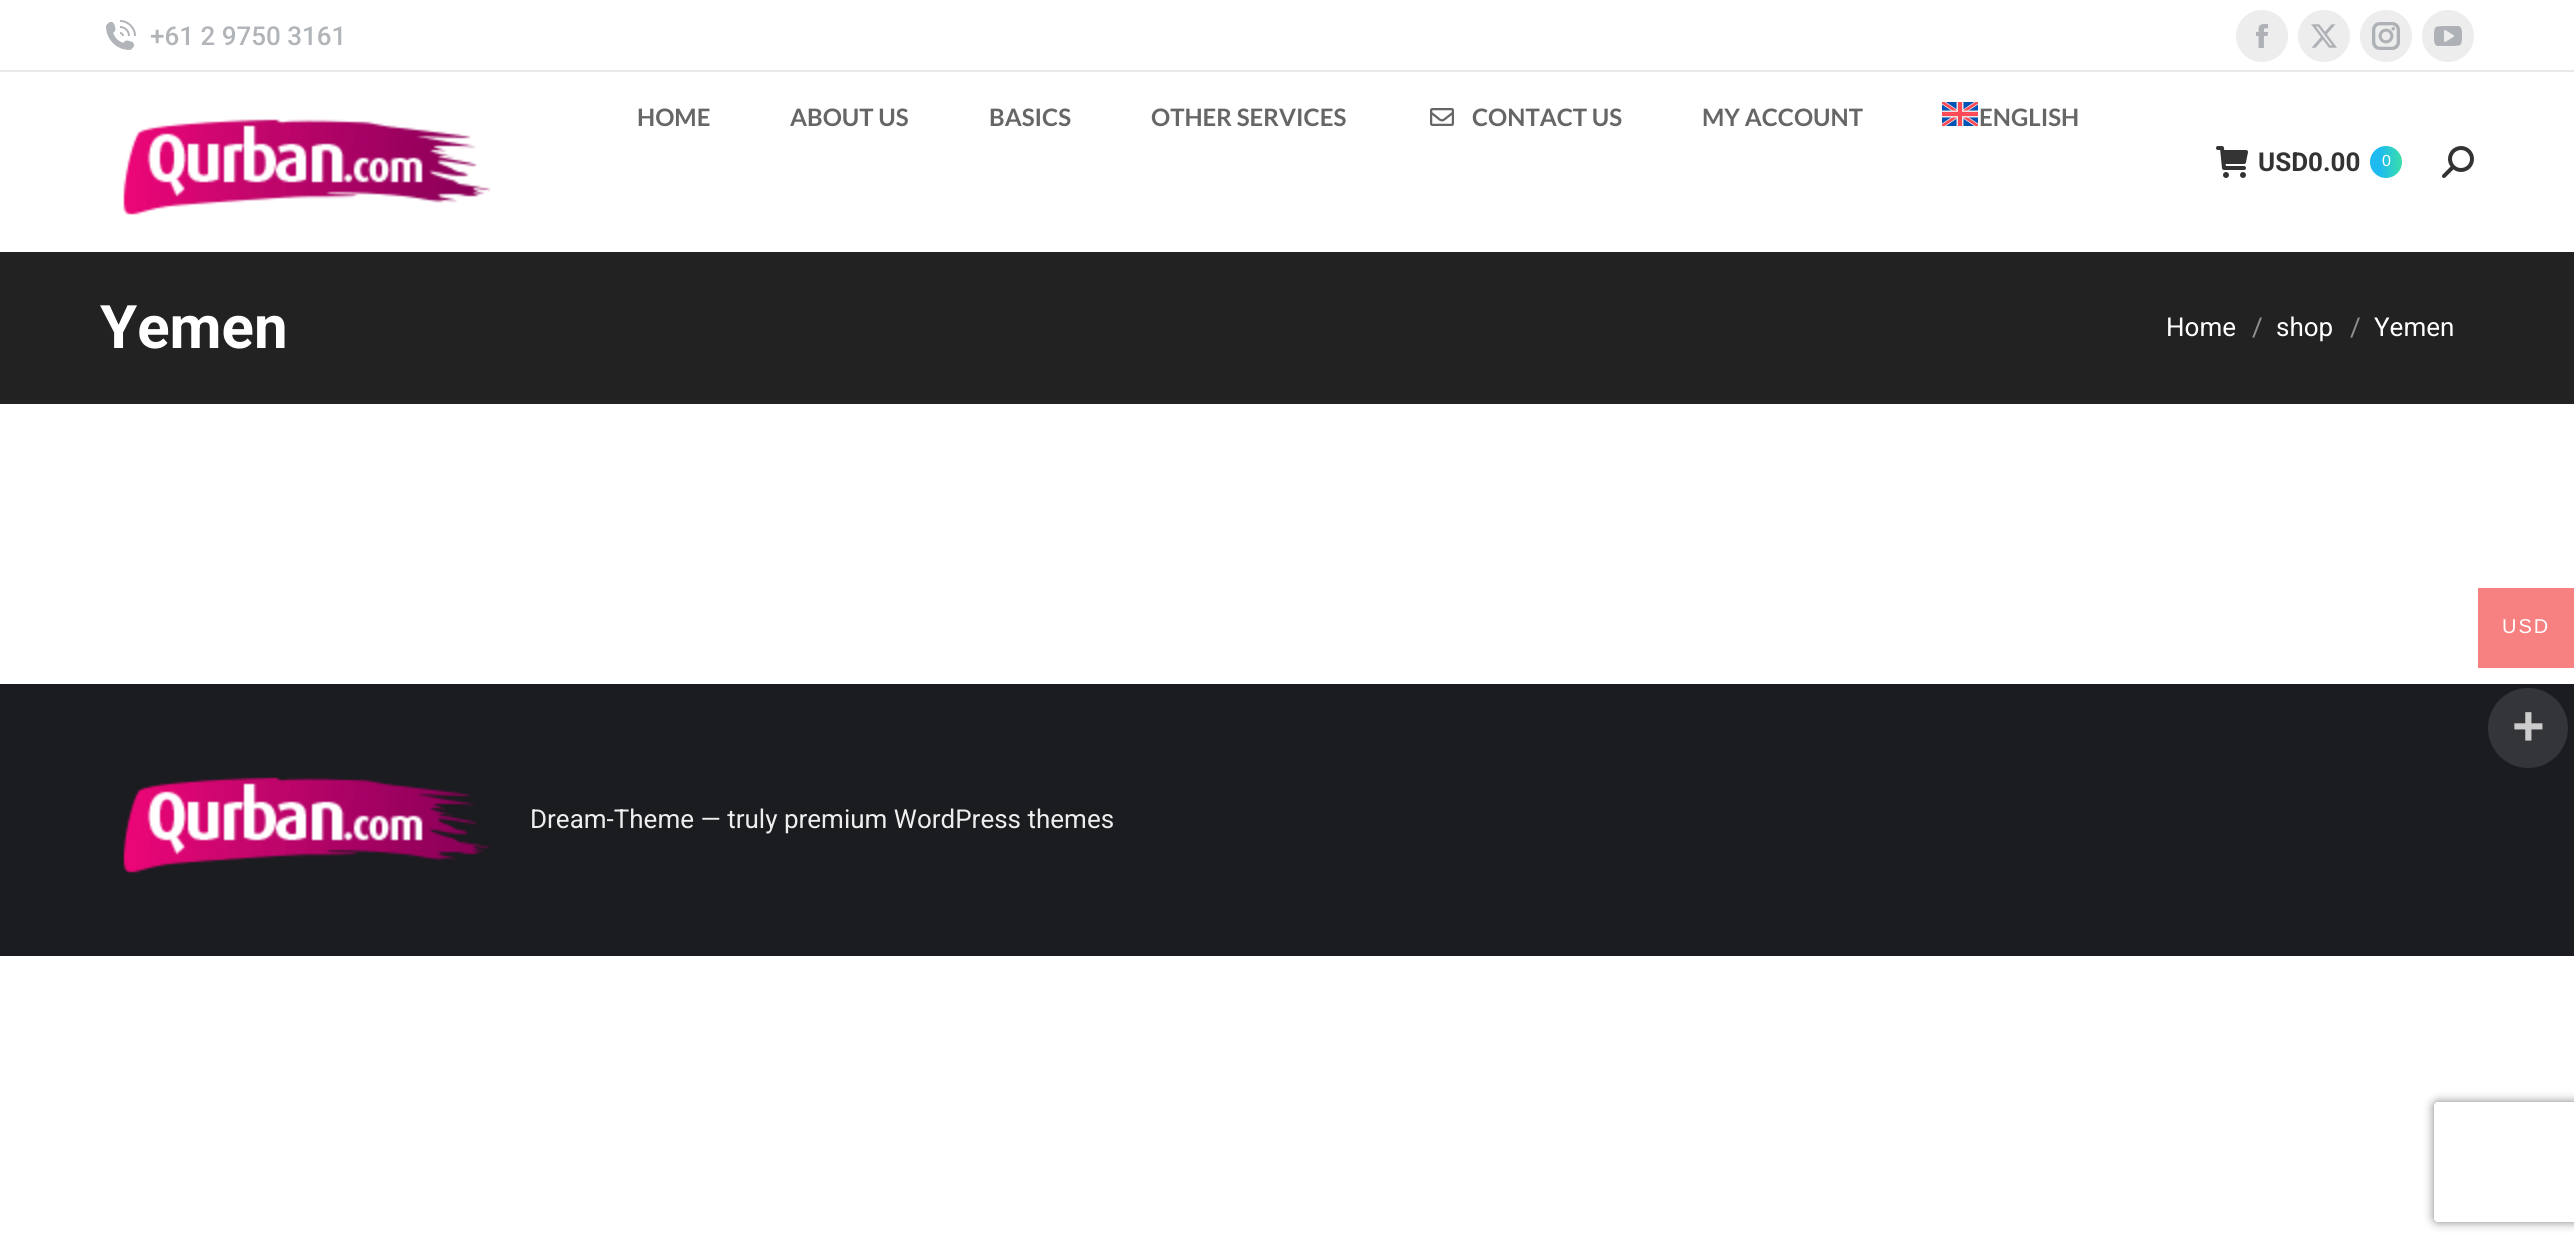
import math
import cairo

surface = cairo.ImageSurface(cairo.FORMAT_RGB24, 2574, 1250)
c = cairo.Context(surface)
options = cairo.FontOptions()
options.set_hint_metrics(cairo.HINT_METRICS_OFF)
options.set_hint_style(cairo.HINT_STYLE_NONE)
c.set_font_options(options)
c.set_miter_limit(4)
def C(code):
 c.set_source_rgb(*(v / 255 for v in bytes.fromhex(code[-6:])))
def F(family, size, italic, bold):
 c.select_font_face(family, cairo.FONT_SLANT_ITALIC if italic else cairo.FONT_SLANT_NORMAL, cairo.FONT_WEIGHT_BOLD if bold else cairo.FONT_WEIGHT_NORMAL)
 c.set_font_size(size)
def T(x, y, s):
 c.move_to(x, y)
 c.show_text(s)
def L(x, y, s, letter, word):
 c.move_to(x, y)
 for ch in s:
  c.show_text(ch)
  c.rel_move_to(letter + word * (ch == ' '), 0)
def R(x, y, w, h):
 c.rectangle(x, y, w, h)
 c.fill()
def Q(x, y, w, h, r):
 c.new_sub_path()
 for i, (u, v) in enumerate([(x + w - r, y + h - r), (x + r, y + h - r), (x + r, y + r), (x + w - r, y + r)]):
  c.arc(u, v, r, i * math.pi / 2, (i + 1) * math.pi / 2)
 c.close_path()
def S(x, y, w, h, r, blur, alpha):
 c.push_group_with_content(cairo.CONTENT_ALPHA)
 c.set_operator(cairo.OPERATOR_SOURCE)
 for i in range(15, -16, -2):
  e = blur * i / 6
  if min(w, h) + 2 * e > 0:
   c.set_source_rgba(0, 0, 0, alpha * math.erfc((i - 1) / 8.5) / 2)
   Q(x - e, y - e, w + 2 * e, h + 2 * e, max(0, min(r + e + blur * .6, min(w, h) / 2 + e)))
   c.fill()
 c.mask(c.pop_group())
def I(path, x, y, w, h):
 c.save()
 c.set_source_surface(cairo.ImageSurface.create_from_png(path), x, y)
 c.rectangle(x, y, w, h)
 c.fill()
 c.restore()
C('ffffff')
c.paint()
I('1.png',106,20,30,30)
F('Roboto Medium',26,0,0)
C('b1b4b8')
T(150,45,'+61 2 9750 3161')
C('ededed')
c.new_path()
c.arc(2262,36,26,0,2 * math.pi)
c.fill()
I('2.png',2256,24,12,24)
c.arc(2324,36,26,0,2 * math.pi)
c.fill()
I('3.png',2311,24,26,24)
c.arc(2386,36,26,0,2 * math.pi)
c.fill()
I('4.png',2372,22,28,28)
c.arc(2448,36,26,0,2 * math.pi)
c.fill()
I('5.png',2434,26,28,20)
C('e9e9e9')
R(0,70,2574,2)
I('6.png',123,119,368,96)
F('Lato',24,0,1)
C('666666')
T(637,126,'HOME')
T(790,126,'ABOUT US')
T(989,126,'BASICS')
T(1151,126,'OTHER SERVICES')
I('7.png',1430,108,24,18)
T(1472,126,'CONTACT US')
T(1702,126,'MY ACCOUNT')
I('8.png',1942,102,36,24)
T(1979,126,'ENGLISH')
I('9.png',2216,146,32,32)
F('Roboto',26,0,1)
C('333333')
T(2258,171,'USD0.00')
gradient = cairo.LinearGradient(2370,162,2402,162)
gradient.add_color_stop_rgba(.3,0.118,0.733,0.941,1)
gradient.add_color_stop_rgba(1,0.224,0.875,0.667,1)
c.set_source(gradient)
c.new_path()
c.arc(2386,162,16,0,2 * math.pi)
c.fill()
F('Liberation Sans',16,0,0)
C('ffffff')
T(2382,166,'0')
I('10.png',2442,146,32,32)
C('222222')
R(0,252,2574,152)
F('Roboto',60,0,1)
C('ffffff')
T(100,348,'Yemen')
F('Roboto',26,0,0)
T(2166,336,'Home')
C('909090')
T(2252,336,'/')
C('ffffff')
T(2276,336,'shop')
C('909090')
T(2350,336,'/')
C('ffffff')
T(2374,336,'Yemen')
C('1a1c20')
R(0,684,2574,272)
I('11.png',123,777,368,96)
C('eeeeee')
T(530,828,'Dream-Theme — truly premium WordPress themes')
C('f78080')
R(2478,588,96,80)
F('Liberation Sans',20,0,0)
C('ffffff')
L(2502,633,'USD',2,0)
C('333538')
c.new_path()
c.arc(2528,728,40,0,2 * math.pi)
c.fill()
F('Liberation Sans',56,0,1)
C('cccccc')
T(2512,745,'+')
c.save()
c.set_fill_rule(cairo.FILL_RULE_EVEN_ODD)
c.new_path()
c.move_to(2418,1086)
c.line_to(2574,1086)
c.line_to(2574,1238)
c.line_to(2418,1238)
c.close_path()
c.move_to(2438,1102)
c.line_to(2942,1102)
c.curve_to(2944,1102,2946,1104,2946,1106)
c.line_to(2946,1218)
c.curve_to(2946,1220,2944,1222,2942,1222)
c.line_to(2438,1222)
c.curve_to(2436,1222,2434,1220,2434,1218)
c.line_to(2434,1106)
c.curve_to(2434,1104,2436,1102,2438,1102)
c.close_path()
c.clip()
C('808080')
S(2434,1102,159,120,4,5,1)
c.restore()
surface.write_to_png('o.png')
